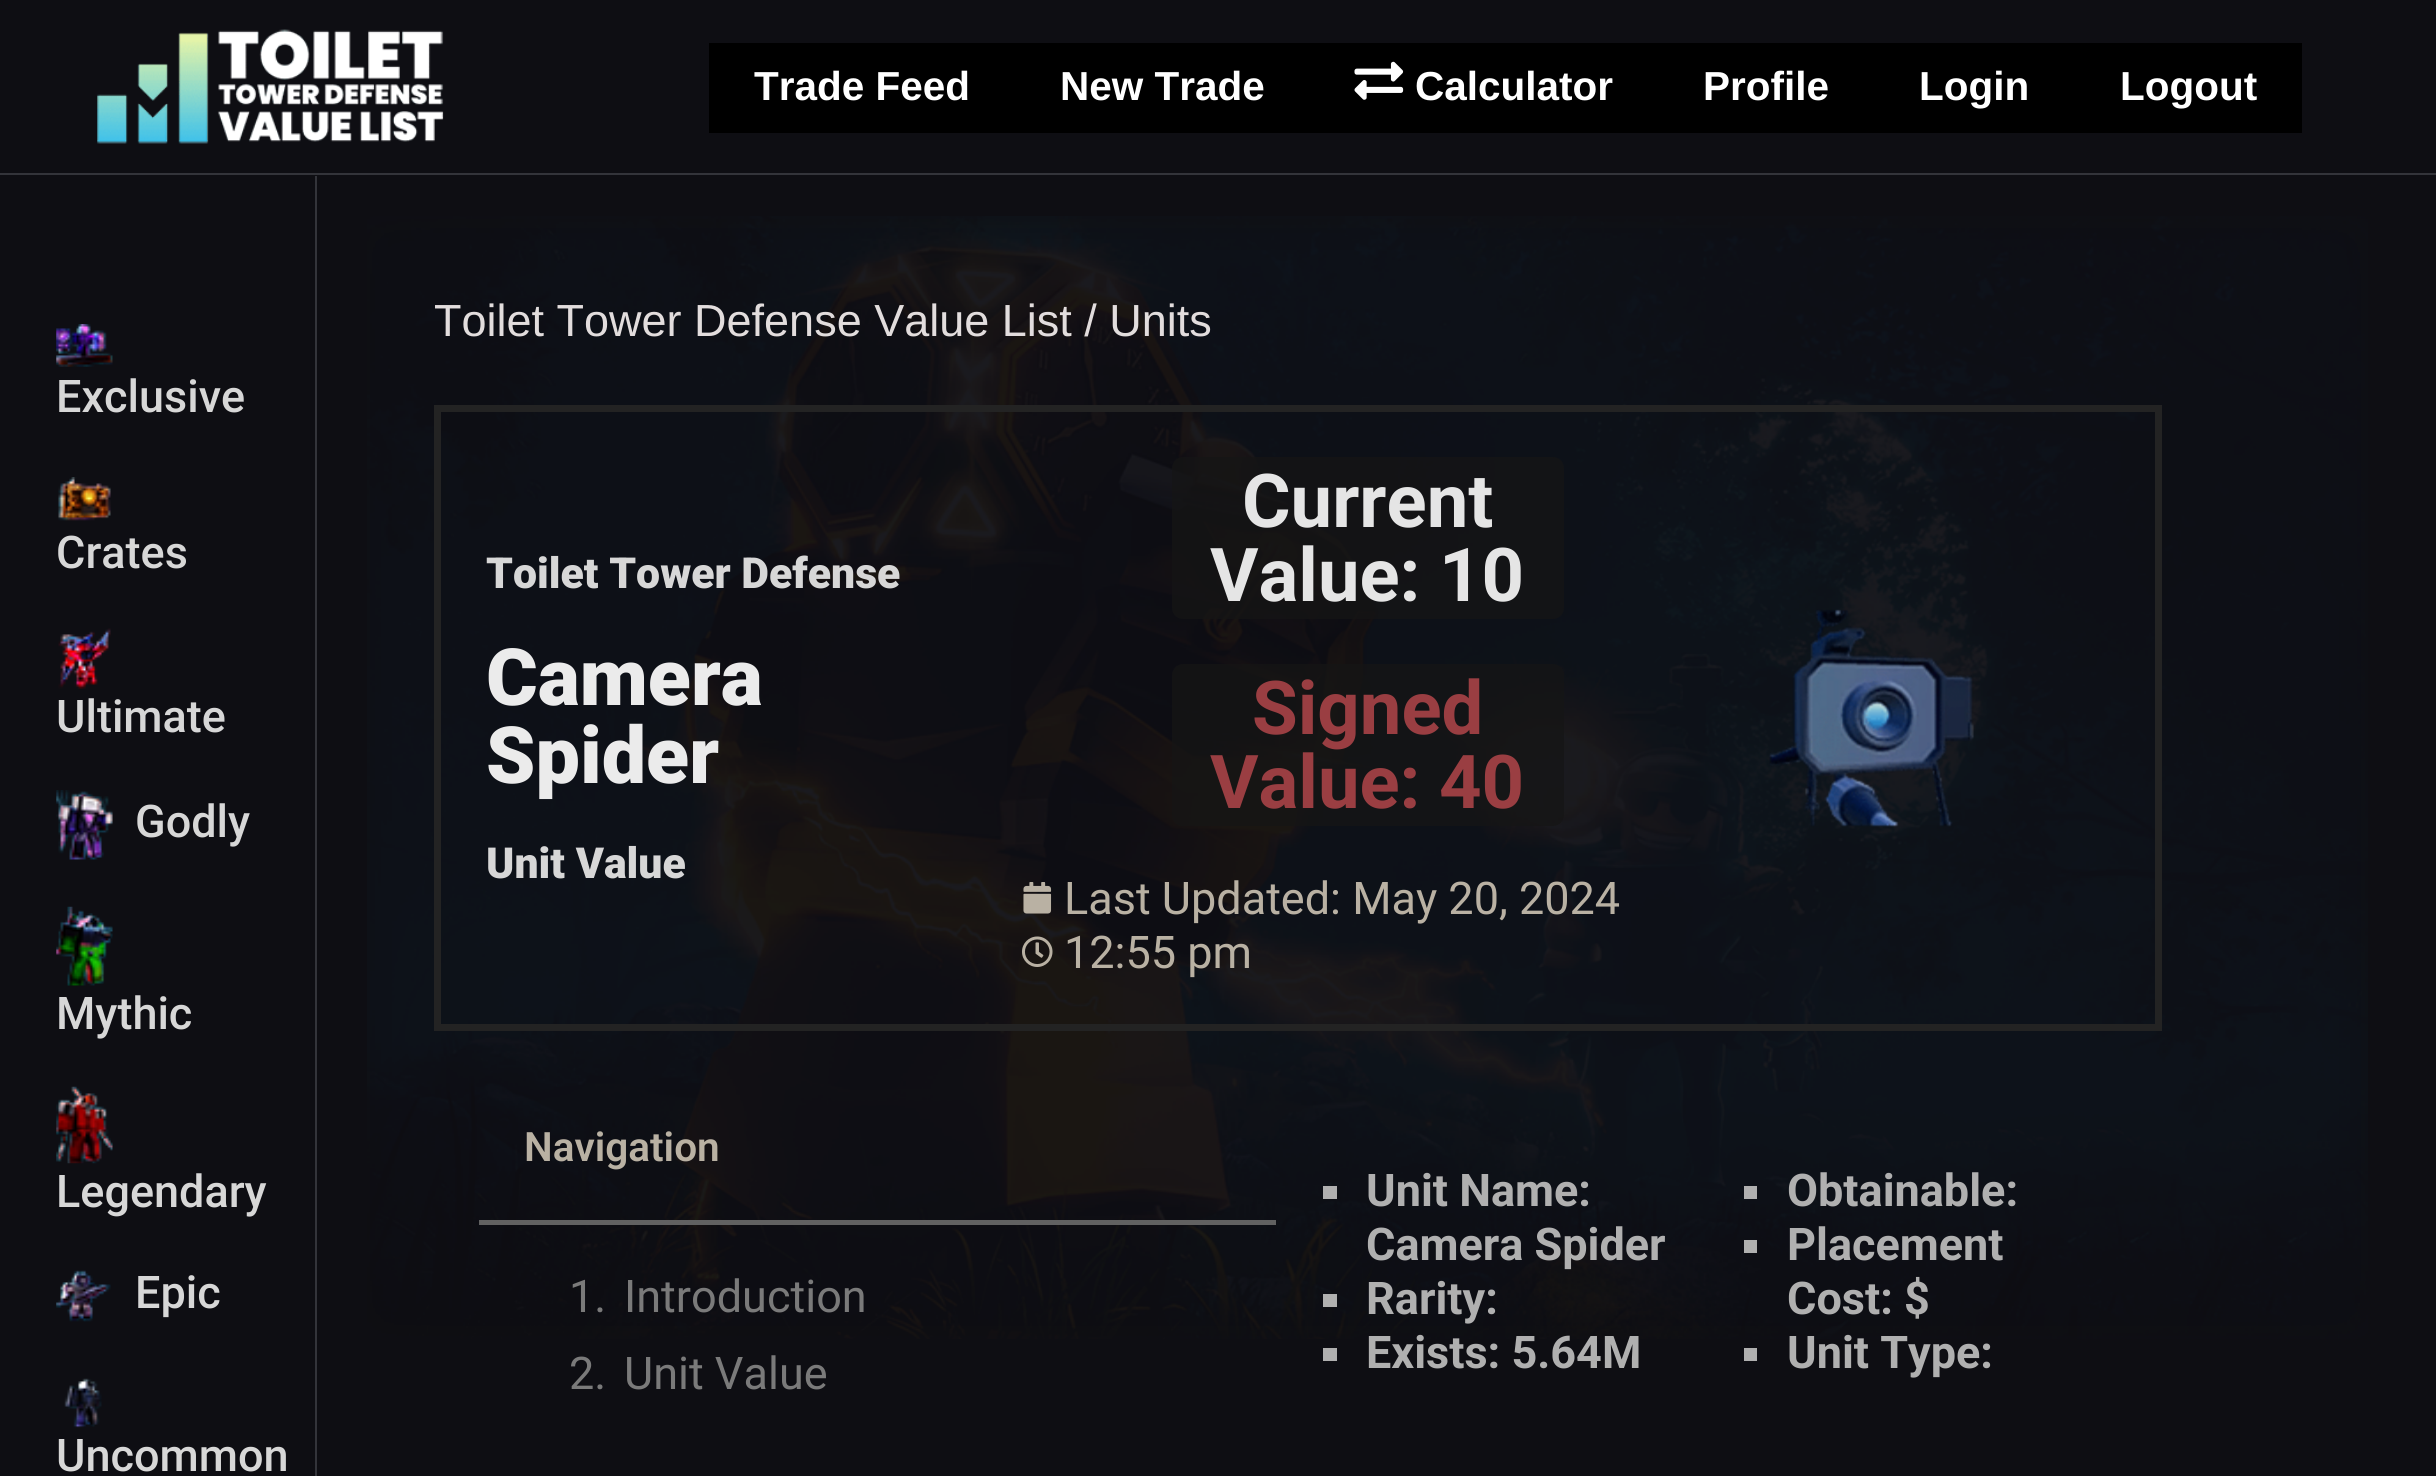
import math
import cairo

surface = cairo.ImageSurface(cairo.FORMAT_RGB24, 2436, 1476)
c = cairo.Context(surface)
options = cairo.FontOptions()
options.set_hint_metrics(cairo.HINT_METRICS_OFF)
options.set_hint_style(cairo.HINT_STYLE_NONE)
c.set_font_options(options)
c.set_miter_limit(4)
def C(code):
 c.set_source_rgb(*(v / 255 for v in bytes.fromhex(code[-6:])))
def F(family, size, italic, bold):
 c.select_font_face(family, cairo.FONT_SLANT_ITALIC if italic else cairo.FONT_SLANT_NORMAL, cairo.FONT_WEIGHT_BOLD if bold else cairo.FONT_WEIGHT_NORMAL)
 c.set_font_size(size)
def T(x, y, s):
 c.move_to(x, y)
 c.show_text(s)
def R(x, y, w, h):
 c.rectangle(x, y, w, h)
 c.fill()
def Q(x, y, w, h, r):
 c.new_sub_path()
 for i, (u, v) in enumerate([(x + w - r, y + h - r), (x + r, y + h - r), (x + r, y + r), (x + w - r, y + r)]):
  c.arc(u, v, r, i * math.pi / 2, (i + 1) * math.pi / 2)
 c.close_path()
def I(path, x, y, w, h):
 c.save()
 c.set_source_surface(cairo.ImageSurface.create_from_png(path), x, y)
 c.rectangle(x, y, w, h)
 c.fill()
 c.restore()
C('0e0e13')
c.paint()
C('33343a')
R(0,173,2436,2)
I('1.png',97,29,347,115)
C('000000')
R(709,43,1593,90)
F('Liberation Sans',40.5,0,1)
C('ffffff')
T(754,100,'Trade Feed')
T(1060,100,'New Trade')
I('2.png',1354,61,50,39)
T(1415,100,'Calculator')
T(1703,100,'Profile')
T(1919,100,'Login')
T(2120,100,'Logout')
C('33343a')
R(315,176,2,1300)
I('3.png',56,324,57,43)
F('Roboto Medium',45,0,0)
C('d7d7d7')
T(56,412,'Exclusive')
I('4.png',58,477,53,44)
T(56,568,'Crates')
I('5.png',58,628,53,61)
T(56,732,'Ultimate')
I('6.png',56,790,57,70)
T(135,837,'Godly')
I('7.png',56,906,57,80)
T(56,1029,'Mythic')
I('8.png',56,1086,57,78)
T(56,1207,'Legendary')
I('9.png',56,1270,55,52)
T(135,1308,'Epic')
I('10.png',64,1378,38,50)
T(56,1471,'Uncommon')
I('11.png',367,216,2001,1123)
F('Liberation Sans',45,0,0)
C('e2dddd')
T(434,336,'Toilet Tower Defense Value List / Units')
c.rectangle(437.5,408.5,1721,619)
C('232323')
c.set_line_width(7)
c.stroke()
F('Roboto Black',42.75,0,0)
C('d7d7d7')
T(486,588,'Toilet Tower Defense')
F('Roboto Black',79,0,0)
C('ebebeb')
T(486,705,'Camera')
T(486,783,'Spider')
F('Roboto Black',42.75,0,0)
C('d7d7d7')
T(486,878,'Unit Value')
c.set_source_rgba(0.086,0.086,0.086,0.72)
Q(1172,457,392,162,11)
c.fill()
F('Roboto',74.25,0,1)
C('e5e5e5')
T(1242,527,'Current')
T(1210,601,'Value: 10')
c.set_source_rgba(0.086,0.086,0.086,0.72)
Q(1172,664,392,162,11)
c.fill()
C('9a3e42')
T(1252,734,'Signed')
T(1210,808,'Value: 40')
I('12.png',1023,882,29,32)
F('Roboto',45,0,0)
C('b9b1a3')
T(1064,914,'Last Updated: May 20, 2024')
I('13.png',1022,936,31,31)
T(1064,968,'12:55 pm')
I('14.png',1769,609,205,218)
C('616161')
R(479,1220,797,5)
F('Roboto SemiBold',40.5,0,0)
C('b9b1a3')
T(524,1161,'Navigation')
F('Roboto',45,0,0)
C('7a7a7a')
T(569,1312,'1.')
T(624,1312,'Introduction')
T(569,1389,'2.')
T(624,1389,'Unit Value')
C('b0b0b0')
R(1323,1186,14,13)
F('Roboto',45,0,1)
T(1366,1206,'Unit Name:')
T(1366,1260,'Camera Spider')
R(1744,1186,13,13)
T(1787,1206,'Obtainable:')
R(1323,1294,14,13)
T(1366,1314,'Rarity:')
R(1744,1240,13,13)
T(1787,1260,'Placement')
T(1787,1314,'Cost: $')
R(1323,1348,14,13)
T(1366,1368,'Exists: 5.64M')
R(1744,1348,13,13)
T(1787,1368,'Unit Type:')
surface.write_to_png('o.png')
